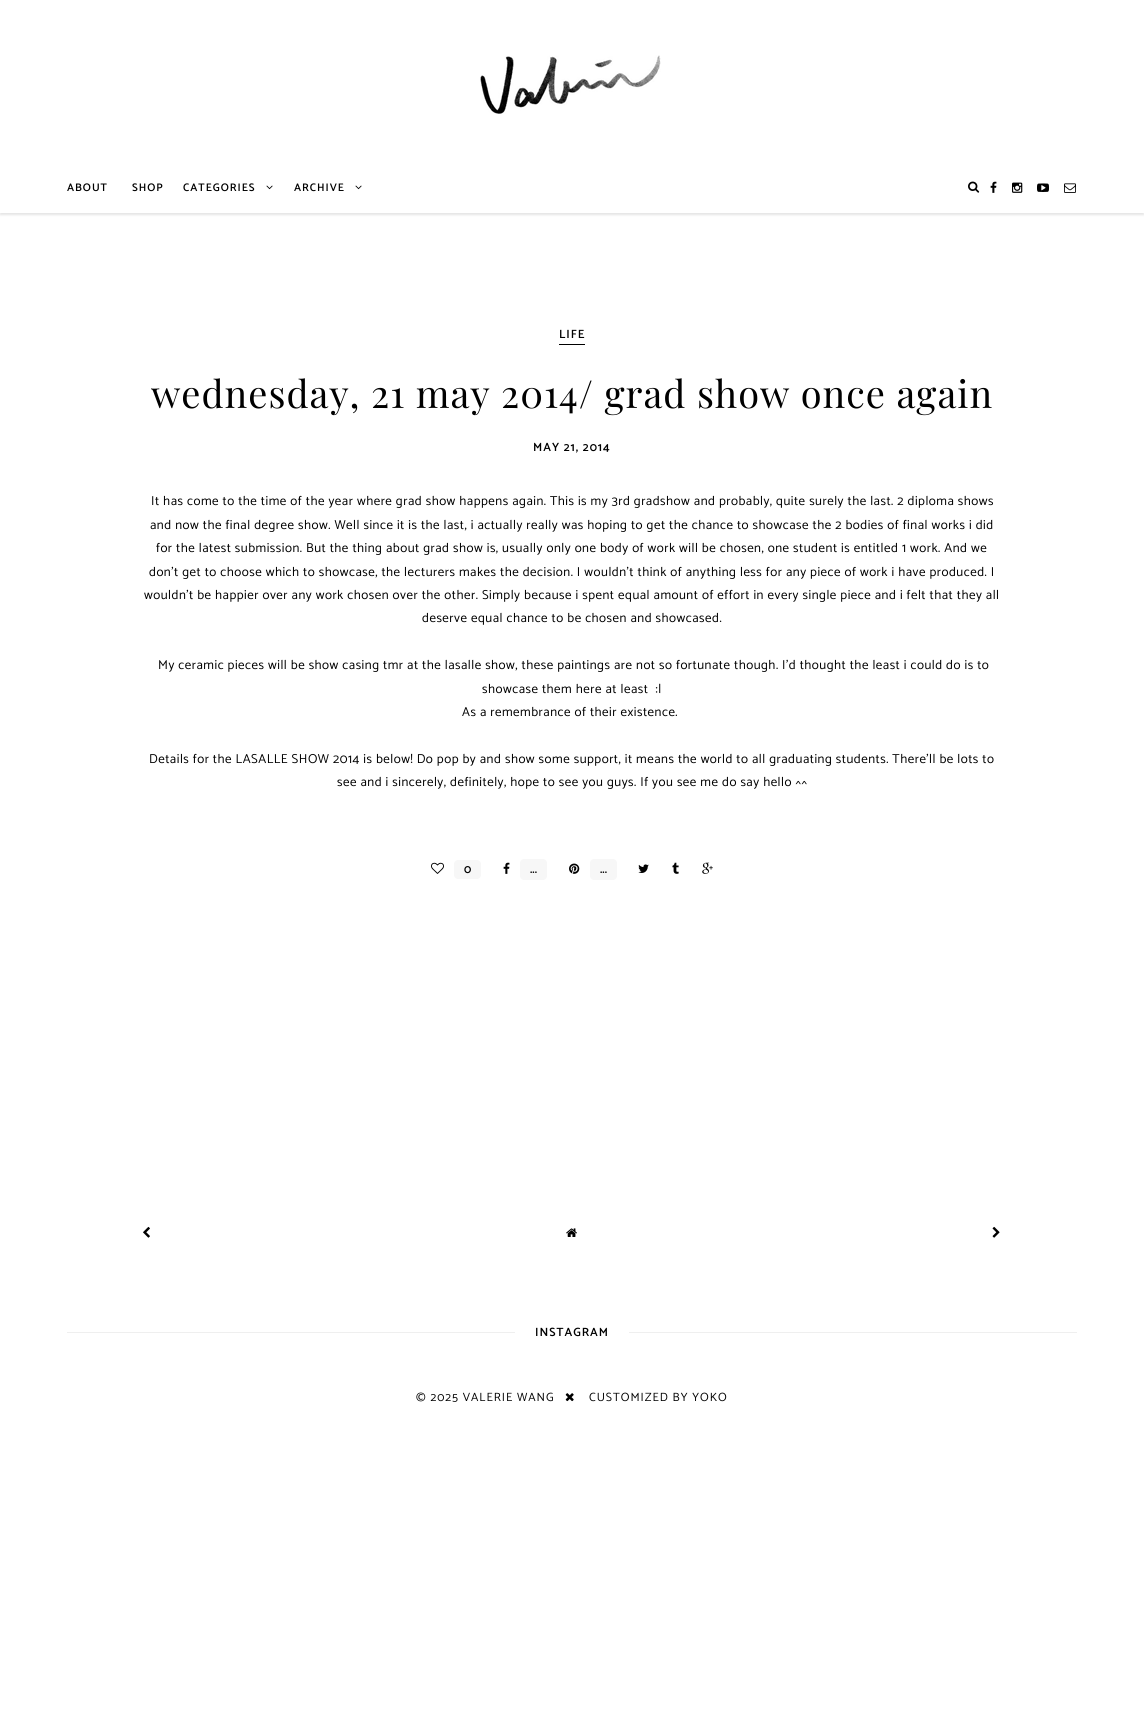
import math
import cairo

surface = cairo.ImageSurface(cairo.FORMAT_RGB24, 1144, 1724)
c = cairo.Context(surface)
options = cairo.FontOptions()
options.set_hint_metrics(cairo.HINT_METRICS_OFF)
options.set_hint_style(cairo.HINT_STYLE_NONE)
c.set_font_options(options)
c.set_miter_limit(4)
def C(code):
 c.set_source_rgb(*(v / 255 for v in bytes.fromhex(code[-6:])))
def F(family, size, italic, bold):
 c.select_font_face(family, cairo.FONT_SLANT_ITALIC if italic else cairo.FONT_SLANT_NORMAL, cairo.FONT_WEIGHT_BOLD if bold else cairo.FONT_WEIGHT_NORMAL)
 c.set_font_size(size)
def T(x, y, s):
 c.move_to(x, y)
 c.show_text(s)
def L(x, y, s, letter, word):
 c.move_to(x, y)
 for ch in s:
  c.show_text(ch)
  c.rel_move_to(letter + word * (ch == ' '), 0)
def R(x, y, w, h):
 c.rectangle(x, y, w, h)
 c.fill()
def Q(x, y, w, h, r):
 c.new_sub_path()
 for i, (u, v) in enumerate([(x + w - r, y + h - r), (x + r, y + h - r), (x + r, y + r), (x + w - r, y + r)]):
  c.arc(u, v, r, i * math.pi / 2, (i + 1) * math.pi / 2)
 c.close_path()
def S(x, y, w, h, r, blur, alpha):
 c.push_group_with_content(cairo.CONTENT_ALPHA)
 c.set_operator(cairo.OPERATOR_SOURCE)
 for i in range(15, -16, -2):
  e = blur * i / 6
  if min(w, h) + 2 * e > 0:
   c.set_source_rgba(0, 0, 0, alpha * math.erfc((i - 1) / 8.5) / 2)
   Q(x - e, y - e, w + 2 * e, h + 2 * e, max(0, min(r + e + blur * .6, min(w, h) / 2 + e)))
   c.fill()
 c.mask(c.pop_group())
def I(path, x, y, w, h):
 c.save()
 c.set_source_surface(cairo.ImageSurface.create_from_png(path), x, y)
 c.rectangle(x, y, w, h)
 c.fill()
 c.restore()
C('ffffff')
c.paint()
I('1.png',480,55,181,59)
c.save()
c.rectangle(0,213,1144,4)
c.clip()
C('bebebe')
S(0,165,1144,50,0,1,.4)
c.restore()
F('Catamaran SemiBold',11,0,0)
C('000000')
L(67,191,'ABOUT',1,0)
L(132,191,'SHOP',1,0)
L(183,191,'CATEGORIES',1,0)
I('2.png',266,185,7,5)
L(294,191,'ARCHIVE',1,0)
I('2.png',355,185,7,5)
I('3.png',968,181,12,12)
I('4.png',990,181,7,12)
I('5.png',1012,182,11,11)
I('6.png',1037,183,12,9)
I('7.png',1064,183,12,10)
F('Catamaran SemiBold',12,0,0)
L(559,338,'LIFE',1,0)
R(559,344,26,1)
F('Playfair Display',38,0,0)
L(151,408,'wednesday, 21 may 2014/ grad show once again',1,0)
F('Catamaran SemiBold',12,0,0)
L(533,451,'MAY 21, 2014',1,0)
F('Catamaran',13,0,0)
L(151,505,'It has come to the time of the year where grad show happens again. This is my 3rd gradshow and probably, quite surely the last. 2 diploma shows',.5,0)
L(150,529,'and now the final degree show. Well since it is the last, i actually really was hoping to get the chance to showcase the 2 bodies of final works i did',.5,0)
L(156,552,'for the latest submission. But the thing about grad show is, usually only one body of work will be chosen, one student is entitled 1 work. And we',.5,0)
L(149,576,'don\'t get to choose which to showcase, the lecturers makes the decision. I wouldn\'t think of anything less for any piece of work i have produced. I',.5,0)
L(144,599,'wouldn\'t be happier over any work chosen over the other. Simply because i spent equal amount of effort in every single piece and i felt that they all',.5,0)
L(422,622,'deserve equal chance to be chosen and showcased.',.5,0)
L(158,669,'My ceramic pieces will be show casing tmr at the lasalle show, these paintings are not so fortunate though. I\'d thought the least i could do is to',.5,0)
L(482,693,'showcase them here at least  :|',.5,0)
L(462,716,'As a remembrance of their existence.',.5,0)
L(149,763,'Details for the LASALLE SHOW 2014 is below! Do pop by and show some support, it means the world to all graduating students. There\'ll be lots to',.5,0)
L(337,786,'see and i sincerely, definitely, hope to see you guys. If you see me do say hello ^^',.5,0)
I('8.png',431,862,13,12)
C('f7f7f7')
Q(454,860,27,19,4)
c.fill()
F('Catamaran SemiBold',12,0,0)
C('000000')
T(464,873,'0')
I('4.png',503,862,7,12)
C('f7f7f7')
Q(520,859,27,21,4)
c.fill()
C('000000')
T(530,873,'...')
I('9.png',569,863,11,11)
C('f7f7f7')
Q(590,859,27,21,4)
c.fill()
C('000000')
T(600,873,'...')
I('10.png',638,864,11,9)
I('11.png',672,862,7,12)
I('12.png',702,862,11,12)
I('13.png',143,1226,7,12)
I('14.png',566,1228,11,9)
I('15.png',992,1226,8,12)
C('efefef')
R(67,1332,1010,1)
C('ffffff')
R(515,1332,114,1)
C('000000')
L(535,1336,'INSTAGRAM',1,0)
F('Catamaran',12,0,0)
L(416,1401,'© 2025 VALERIE WANG',1,0)
I('16.png',565,1393,9,9)
L(589,1401,'CUSTOMIZED BY YOKO',1,0)
surface.write_to_png('o.png')
